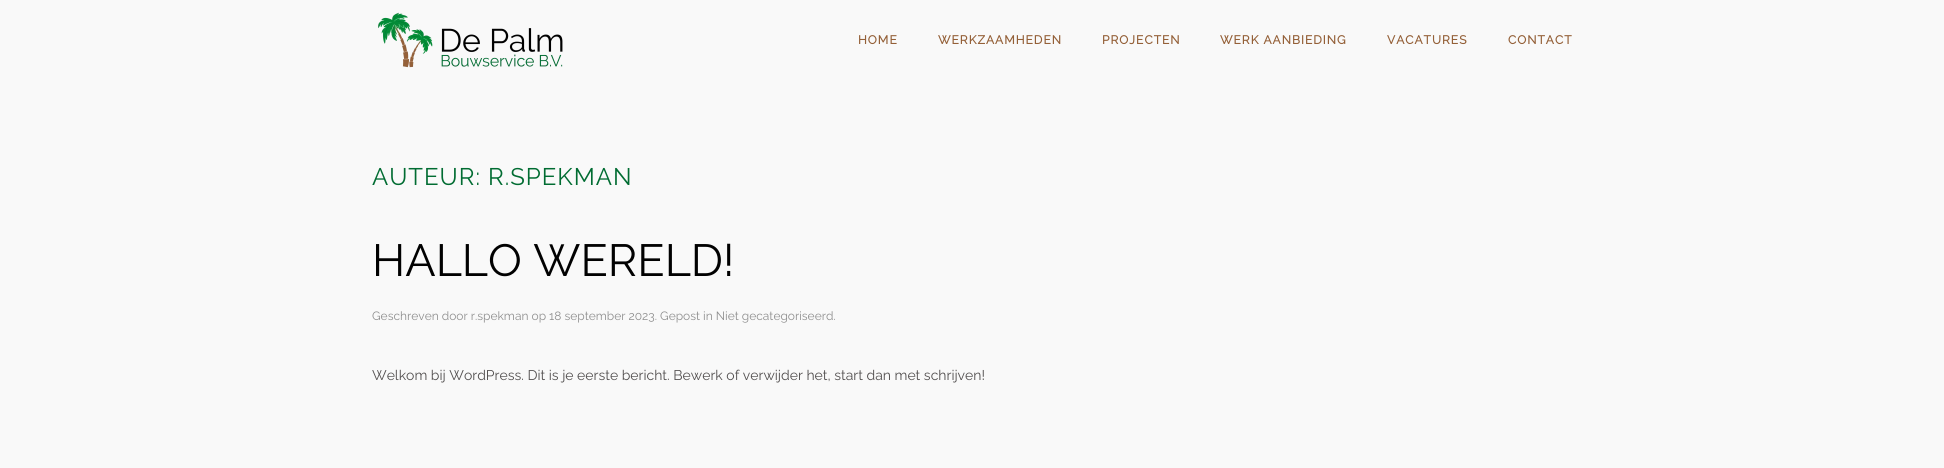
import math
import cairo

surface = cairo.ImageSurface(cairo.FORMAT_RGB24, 1944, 468)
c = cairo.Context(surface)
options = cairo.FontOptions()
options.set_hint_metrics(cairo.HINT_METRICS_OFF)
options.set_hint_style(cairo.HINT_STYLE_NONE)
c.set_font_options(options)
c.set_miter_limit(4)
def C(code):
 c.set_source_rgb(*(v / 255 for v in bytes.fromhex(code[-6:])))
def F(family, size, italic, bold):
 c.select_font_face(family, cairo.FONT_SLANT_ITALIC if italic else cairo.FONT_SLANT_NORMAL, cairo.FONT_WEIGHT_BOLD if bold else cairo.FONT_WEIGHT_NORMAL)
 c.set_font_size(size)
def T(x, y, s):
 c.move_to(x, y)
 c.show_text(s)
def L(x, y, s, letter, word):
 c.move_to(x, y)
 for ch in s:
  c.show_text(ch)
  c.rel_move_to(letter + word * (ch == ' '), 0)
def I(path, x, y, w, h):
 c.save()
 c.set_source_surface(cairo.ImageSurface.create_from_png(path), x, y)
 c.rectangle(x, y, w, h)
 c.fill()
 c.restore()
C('f9f9f9')
c.paint()
I('1.png',378,12,185,56)
F('Raleway',12,0,1)
C('946038')
L(858,44,'HOME',1,0)
L(938,44,'WERKZAAMHEDEN',1,0)
L(1102,44,'PROJECTEN',1,0)
L(1220,44,'WERK AANBIEDING',1,0)
L(1387,44,'VACATURES',1,0)
L(1508,44,'CONTACT',1,0)
F('Raleway Thin',24,0,0)
C('016c32')
L(372,185,'AUTEUR: R.SPEKMAN',1,0)
F('Raleway Thin',45,0,0)
C('010101')
T(372,276,'HALLO WERELD!')
F('Raleway Thin',12,0,0)
C('8e8e8e')
T(372,320,'Geschreven door r.spekman op 18 september 2023. Gepost in Niet gecategoriseerd.')
F('Raleway Thin',14,0,0)
C('524f4f')
T(372,380,'Welkom bij WordPress. Dit is je eerste bericht. Bewerk of verwijder het, start dan met schrijven!')
surface.write_to_png('o.png')
